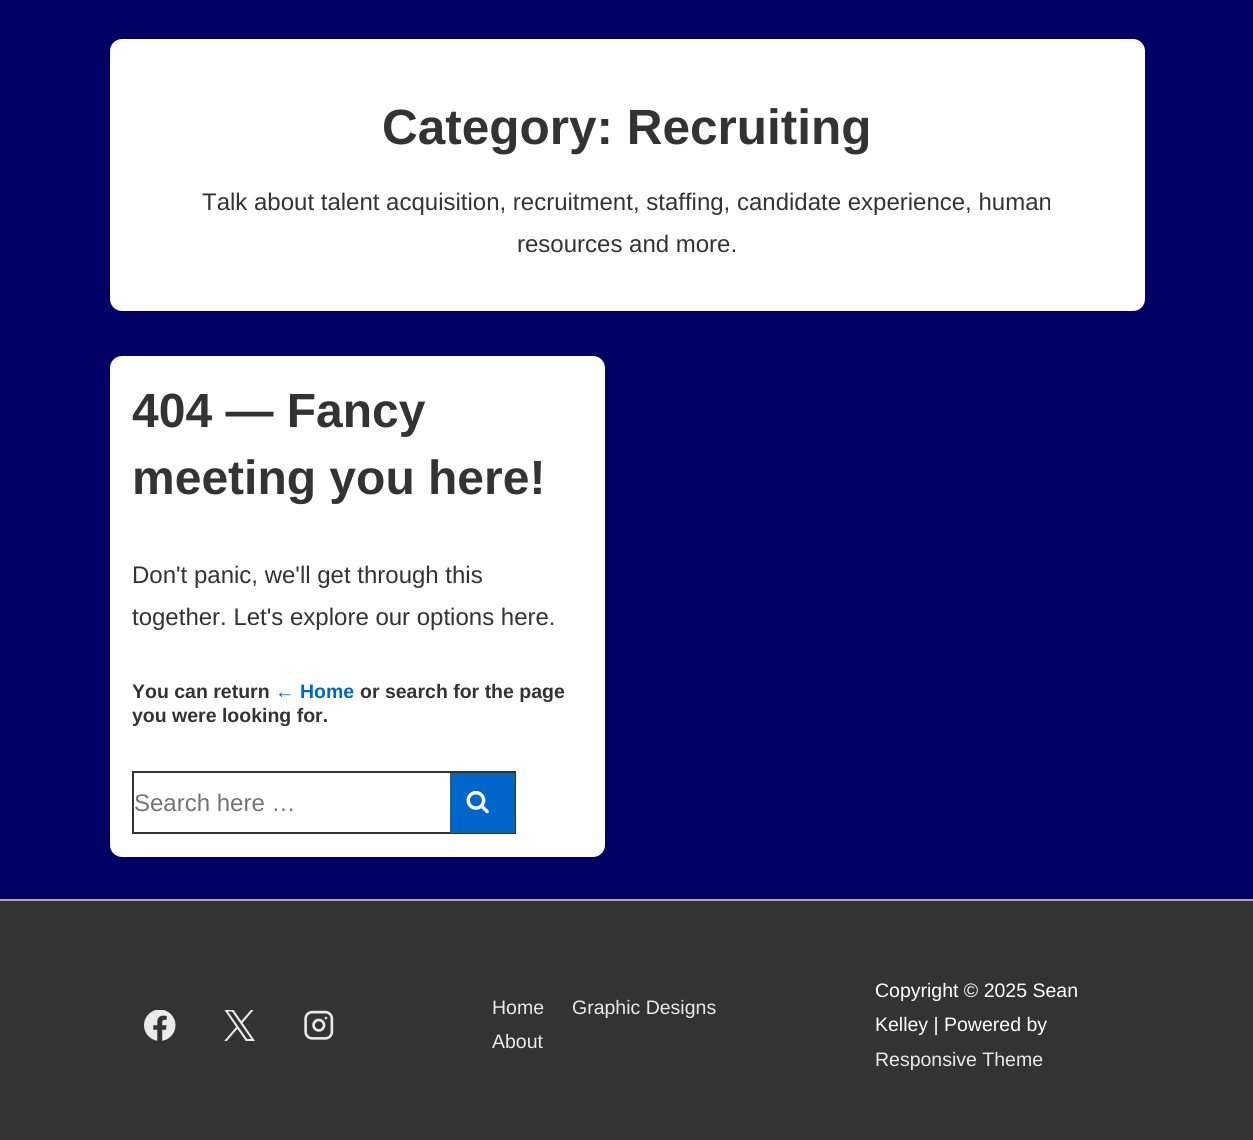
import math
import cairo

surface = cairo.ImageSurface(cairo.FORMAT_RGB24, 1253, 1140)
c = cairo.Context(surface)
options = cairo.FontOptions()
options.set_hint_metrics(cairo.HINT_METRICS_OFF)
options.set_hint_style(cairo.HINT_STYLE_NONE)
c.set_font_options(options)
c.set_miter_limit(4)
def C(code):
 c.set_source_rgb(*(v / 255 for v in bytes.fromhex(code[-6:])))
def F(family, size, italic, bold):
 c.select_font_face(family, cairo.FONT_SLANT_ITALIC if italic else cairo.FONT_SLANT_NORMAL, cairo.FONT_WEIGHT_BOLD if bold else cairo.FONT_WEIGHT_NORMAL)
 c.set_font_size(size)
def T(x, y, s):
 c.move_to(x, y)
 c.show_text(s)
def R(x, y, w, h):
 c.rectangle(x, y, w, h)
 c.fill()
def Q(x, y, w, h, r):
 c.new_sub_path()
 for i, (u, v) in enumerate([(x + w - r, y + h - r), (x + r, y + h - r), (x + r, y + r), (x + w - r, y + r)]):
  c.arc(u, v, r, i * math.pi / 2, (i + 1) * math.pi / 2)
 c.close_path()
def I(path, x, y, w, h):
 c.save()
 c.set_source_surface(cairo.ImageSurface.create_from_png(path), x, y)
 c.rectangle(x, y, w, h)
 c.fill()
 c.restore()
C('000065')
c.paint()
C('ffffff')
Q(110,39,1035,272,12)
c.fill()
F('Liberation Sans',49.5,0,1)
C('333333')
T(382,144,'Category: Recruiting')
F('Liberation Sans',24,0,0)
T(202,210,'Talk about talent acquisition, recruitment, staffing, candidate experience, human')
T(517,252,'resources and more.')
C('ffffff')
Q(110,356,495,501,12)
c.fill()
F('Liberation Sans',48,0,1)
C('333333')
T(132,427,'404 — Fancy')
T(132,494,'meeting you here!')
F('Liberation Sans',24,0,0)
T(132,583,'Don\'t panic, we\'ll get through this')
T(132,625,'together. Let\'s explore our options here.')
F('Liberation Sans',19.5,0,1)
T(132,698,'You can return')
C('0066cc')
T(275,698,'← Home')
C('333333')
T(360,698,'or search for the page')
T(132,722,'you were looking for.')
c.rectangle(133,772,382,61)
c.stroke()
F('Liberation Sans',24,0,0)
C('757575')
T(134,811,'Search here …')
C('0066cc')
c.rectangle(451,774,63,58)
c.fill_preserve()
C('10659c')
c.stroke()
I('1.png',466,790,23,24)
C('333333')
R(0,901,1253,239)
C('aaaaaa')
R(0,899,1253,2)
I('2.png',144,1010,32,31)
I('3.png',224,1010,31,31)
I('4.png',304,1010,30,30)
F('Liberation Sans',19.5,0,0)
C('eaeaea')
T(492,1014,'Home')
T(572,1014,'Graphic Designs')
T(492,1048,'About')
C('ffffff')
T(875,997,'Copyright © 2025 Sean')
T(875,1031,'Kelley | Powered by')
C('eaeaea')
T(875,1066,'Responsive Theme')
surface.write_to_png('o.png')
